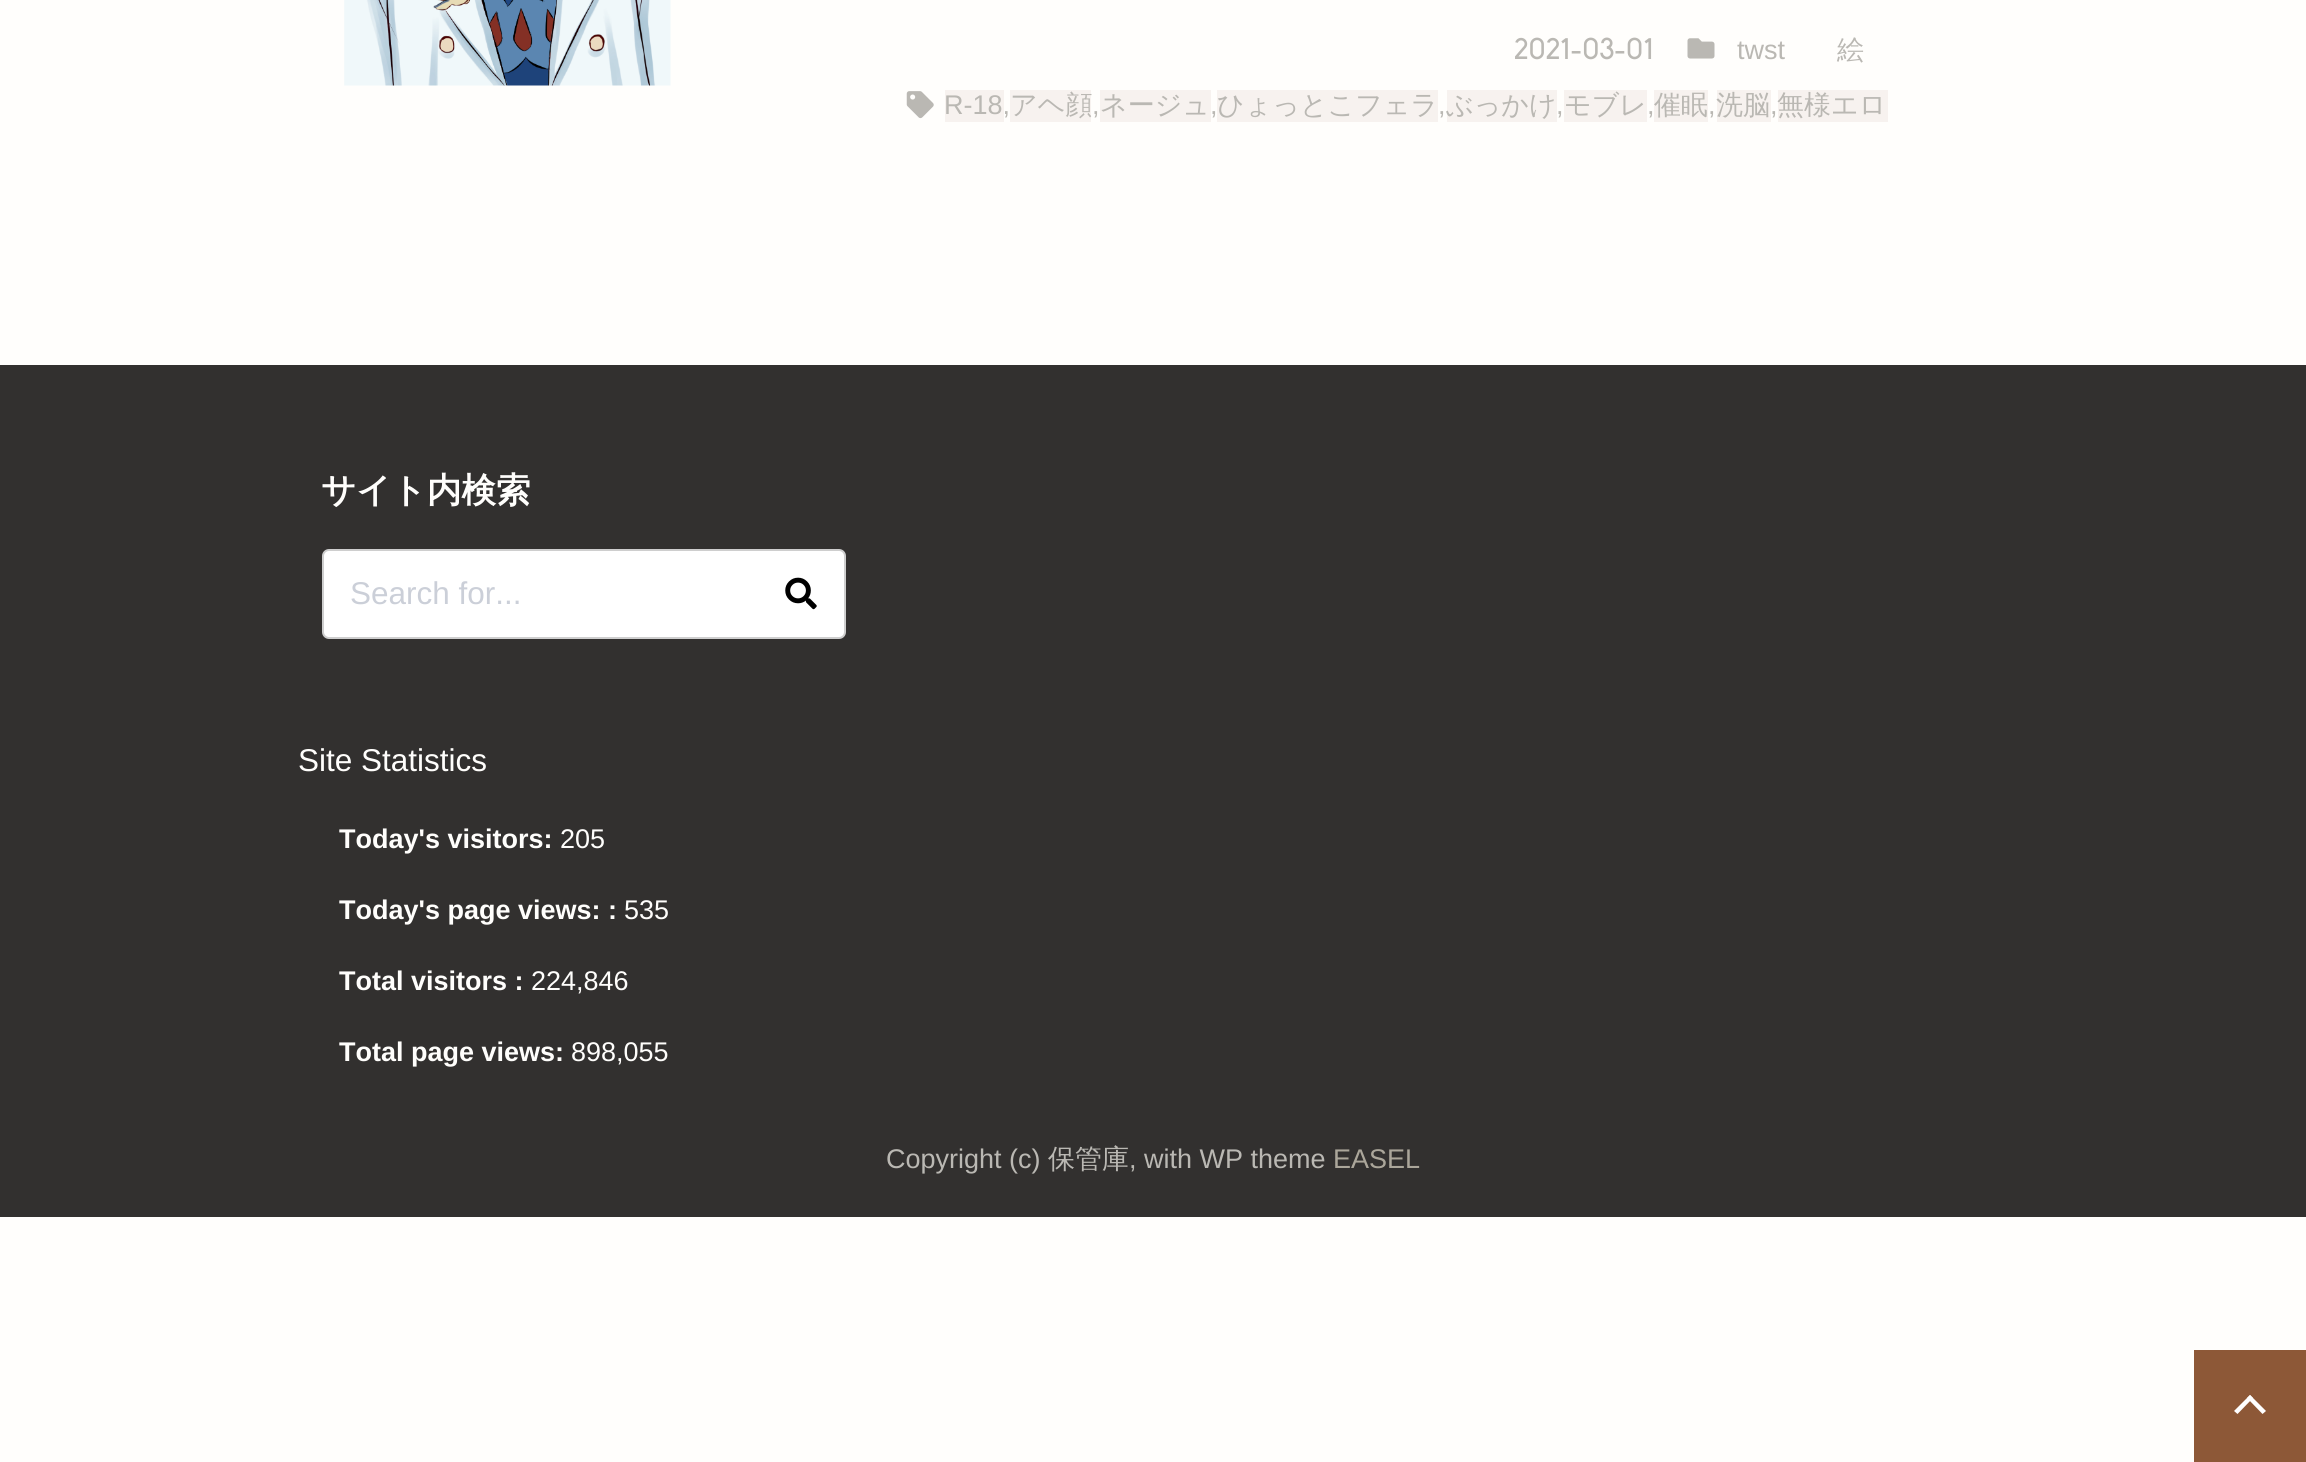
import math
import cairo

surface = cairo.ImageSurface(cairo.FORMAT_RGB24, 2306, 1462)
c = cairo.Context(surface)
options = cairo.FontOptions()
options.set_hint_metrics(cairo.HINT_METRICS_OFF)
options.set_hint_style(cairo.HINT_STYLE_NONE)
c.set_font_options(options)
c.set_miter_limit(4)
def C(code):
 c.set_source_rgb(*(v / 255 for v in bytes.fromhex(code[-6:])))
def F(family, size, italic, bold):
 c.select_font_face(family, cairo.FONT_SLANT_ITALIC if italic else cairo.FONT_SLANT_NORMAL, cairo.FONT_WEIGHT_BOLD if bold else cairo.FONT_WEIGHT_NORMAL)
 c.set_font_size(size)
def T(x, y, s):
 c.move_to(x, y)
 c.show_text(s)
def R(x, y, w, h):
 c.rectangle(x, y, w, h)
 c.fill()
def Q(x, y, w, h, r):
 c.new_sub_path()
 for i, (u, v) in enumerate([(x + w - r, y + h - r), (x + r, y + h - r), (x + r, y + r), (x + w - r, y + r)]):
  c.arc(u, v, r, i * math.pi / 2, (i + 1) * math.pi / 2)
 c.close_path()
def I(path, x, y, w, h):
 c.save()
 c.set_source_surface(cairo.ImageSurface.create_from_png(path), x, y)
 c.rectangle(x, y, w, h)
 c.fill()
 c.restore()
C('fffefc')
c.paint()
I('1.png',344,0,327,86)
F('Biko',29.25,0,0)
C('bab8b3')
T(1514,59,'2021-03-01')
I('2.png',1687,38,28,21)
F('Liberation Sans',27,0,0)
T(1737,59,'twst')
F('WenQuanYi Zen Hei Medium',27,0,0)
T(1837,59,'絵')
I('3.png',906,91,28,28)
C('f7f2ef')
R(945,90,59,32)
F('Liberation Sans',27,0,0)
C('bab8b3')
T(944,114,'R-18,')
C('f7f2ef')
R(1010,90,81,32)
F('WenQuanYi Zen Hei Medium',27,0,0)
C('bab8b3')
T(1010,114,'アヘ顔')
F('Liberation Sans',27,0,0)
T(1092,114,',')
C('f7f2ef')
R(1100,90,111,32)
F('WenQuanYi Zen Hei Medium',27,0,0)
C('bab8b3')
T(1100,114,'ネージュ')
F('Liberation Sans',27,0,0)
T(1210,114,',')
C('f7f2ef')
R(1217,90,221,32)
F('WenQuanYi Zen Hei Medium',27,0,0)
C('bab8b3')
T(1217,114,'ひょっとこフェラ')
F('Liberation Sans',27,0,0)
T(1438,114,',')
C('f7f2ef')
R(1447,90,110,32)
F('WenQuanYi Zen Hei Medium',27,0,0)
C('bab8b3')
T(1446,114,'ぶっかけ')
F('Liberation Sans',27,0,0)
T(1556,114,',')
C('f7f2ef')
R(1564,90,83,32)
F('WenQuanYi Zen Hei Medium',27,0,0)
C('bab8b3')
T(1564,114,'モブレ')
F('Liberation Sans',27,0,0)
T(1647,114,',')
C('f7f2ef')
R(1654,90,54,32)
F('WenQuanYi Zen Hei Medium',27,0,0)
C('bab8b3')
T(1654,114,'催眠')
F('Liberation Sans',27,0,0)
T(1708,114,',')
C('f7f2ef')
R(1717,90,54,32)
F('WenQuanYi Zen Hei Medium',27,0,0)
C('bab8b3')
T(1716,114,'洗脳')
F('Liberation Sans',27,0,0)
T(1770,114,',')
C('f7f2ef')
R(1778,90,110,32)
F('WenQuanYi Zen Hei Medium',27,0,0)
C('bab8b3')
T(1777,114,'無様エロ')
C('32302f')
R(0,365,2306,852)
F('WenQuanYi Zen Hei',34.5,0,1)
C('fffefc')
T(321,502,'サイト内検索')
C('ffffff')
Q(323,550,522,88,6)
c.fill_preserve()
C('cecece')
c.stroke()
F('Liberation Sans',31.5,0,0)
C('cbcfd8')
T(350,604,'Search for...')
I('4.png',785,577,32,33)
C('fffefc')
T(298,771,'Site Statistics')
F('Liberation Sans',27,0,1)
T(339,848,'Today\'s visitors:')
F('Liberation Sans',27,0,0)
T(560,848,'205')
F('Liberation Sans',27,0,1)
T(339,919,'Today\'s page views: :')
F('Liberation Sans',27,0,0)
T(624,919,'535')
F('Liberation Sans',27,0,1)
T(339,990,'Total visitors :')
F('Liberation Sans',27,0,0)
T(531,990,'224,846')
F('Liberation Sans',27,0,1)
T(339,1061,'Total page views:')
F('Liberation Sans',27,0,0)
T(571,1061,'898,055')
C('bab8b3')
T(886,1168,'Copyright (c)')
F('WenQuanYi Zen Hei Medium',27,0,0)
T(1048,1168,'保管庫')
F('Liberation Sans',27,0,0)
T(1129,1168,', with WP theme')
C('aba69a')
T(1333,1168,'EASEL')
C('8d5837')
R(2194,1350,112,112)
C('ffffff')
c.new_path()
c.move_to(2250,1395)
c.line_to(2266,1411)
c.line_to(2262.5,1414)
c.line_to(2247,1398)
c.close_path()
c.fill()
c.new_path()
c.move_to(2250,1395)
c.line_to(2253,1398)
c.line_to(2237.5,1414)
c.line_to(2234,1411)
c.close_path()
c.fill()
surface.write_to_png('o.png')
